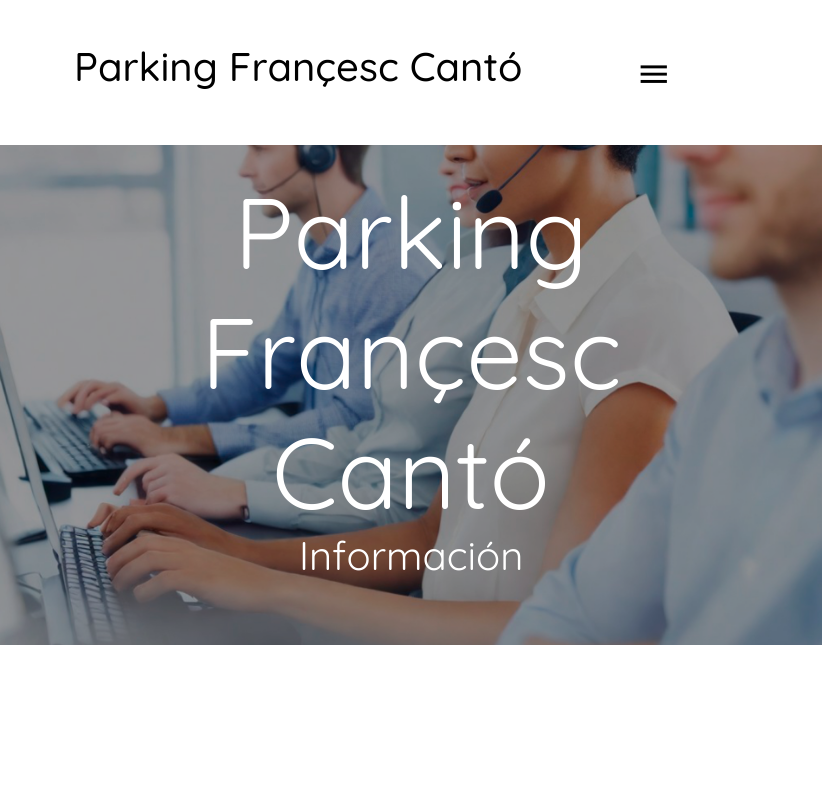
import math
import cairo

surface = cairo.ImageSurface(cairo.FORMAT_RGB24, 822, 801)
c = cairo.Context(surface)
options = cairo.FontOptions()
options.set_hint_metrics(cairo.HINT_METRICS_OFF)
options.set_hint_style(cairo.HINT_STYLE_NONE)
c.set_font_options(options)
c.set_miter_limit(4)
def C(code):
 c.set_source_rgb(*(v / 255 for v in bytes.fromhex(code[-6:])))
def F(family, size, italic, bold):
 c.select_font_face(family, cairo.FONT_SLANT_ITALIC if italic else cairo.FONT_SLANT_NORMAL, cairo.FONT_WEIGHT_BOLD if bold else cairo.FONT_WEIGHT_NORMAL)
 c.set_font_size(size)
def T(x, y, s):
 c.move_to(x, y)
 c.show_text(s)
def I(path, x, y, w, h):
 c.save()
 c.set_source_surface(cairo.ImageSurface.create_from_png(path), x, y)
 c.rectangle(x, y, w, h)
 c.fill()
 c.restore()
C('ffffff')
c.paint()
F('Quicksand Medium',40,0,0)
C('000000')
T(74,81,'Parking Françesc Cantó')
I('1.png',640,65,27,18)
I('2.png',0,145,822,500)
F('Quicksand',100,0,0)
C('ffffff')
T(234,269,'Parking')
T(201,389,'Françesc')
T(272,509,'Cantó')
F('Quicksand',40,0,0)
T(299,570,'Información')
surface.write_to_png('o.png')
